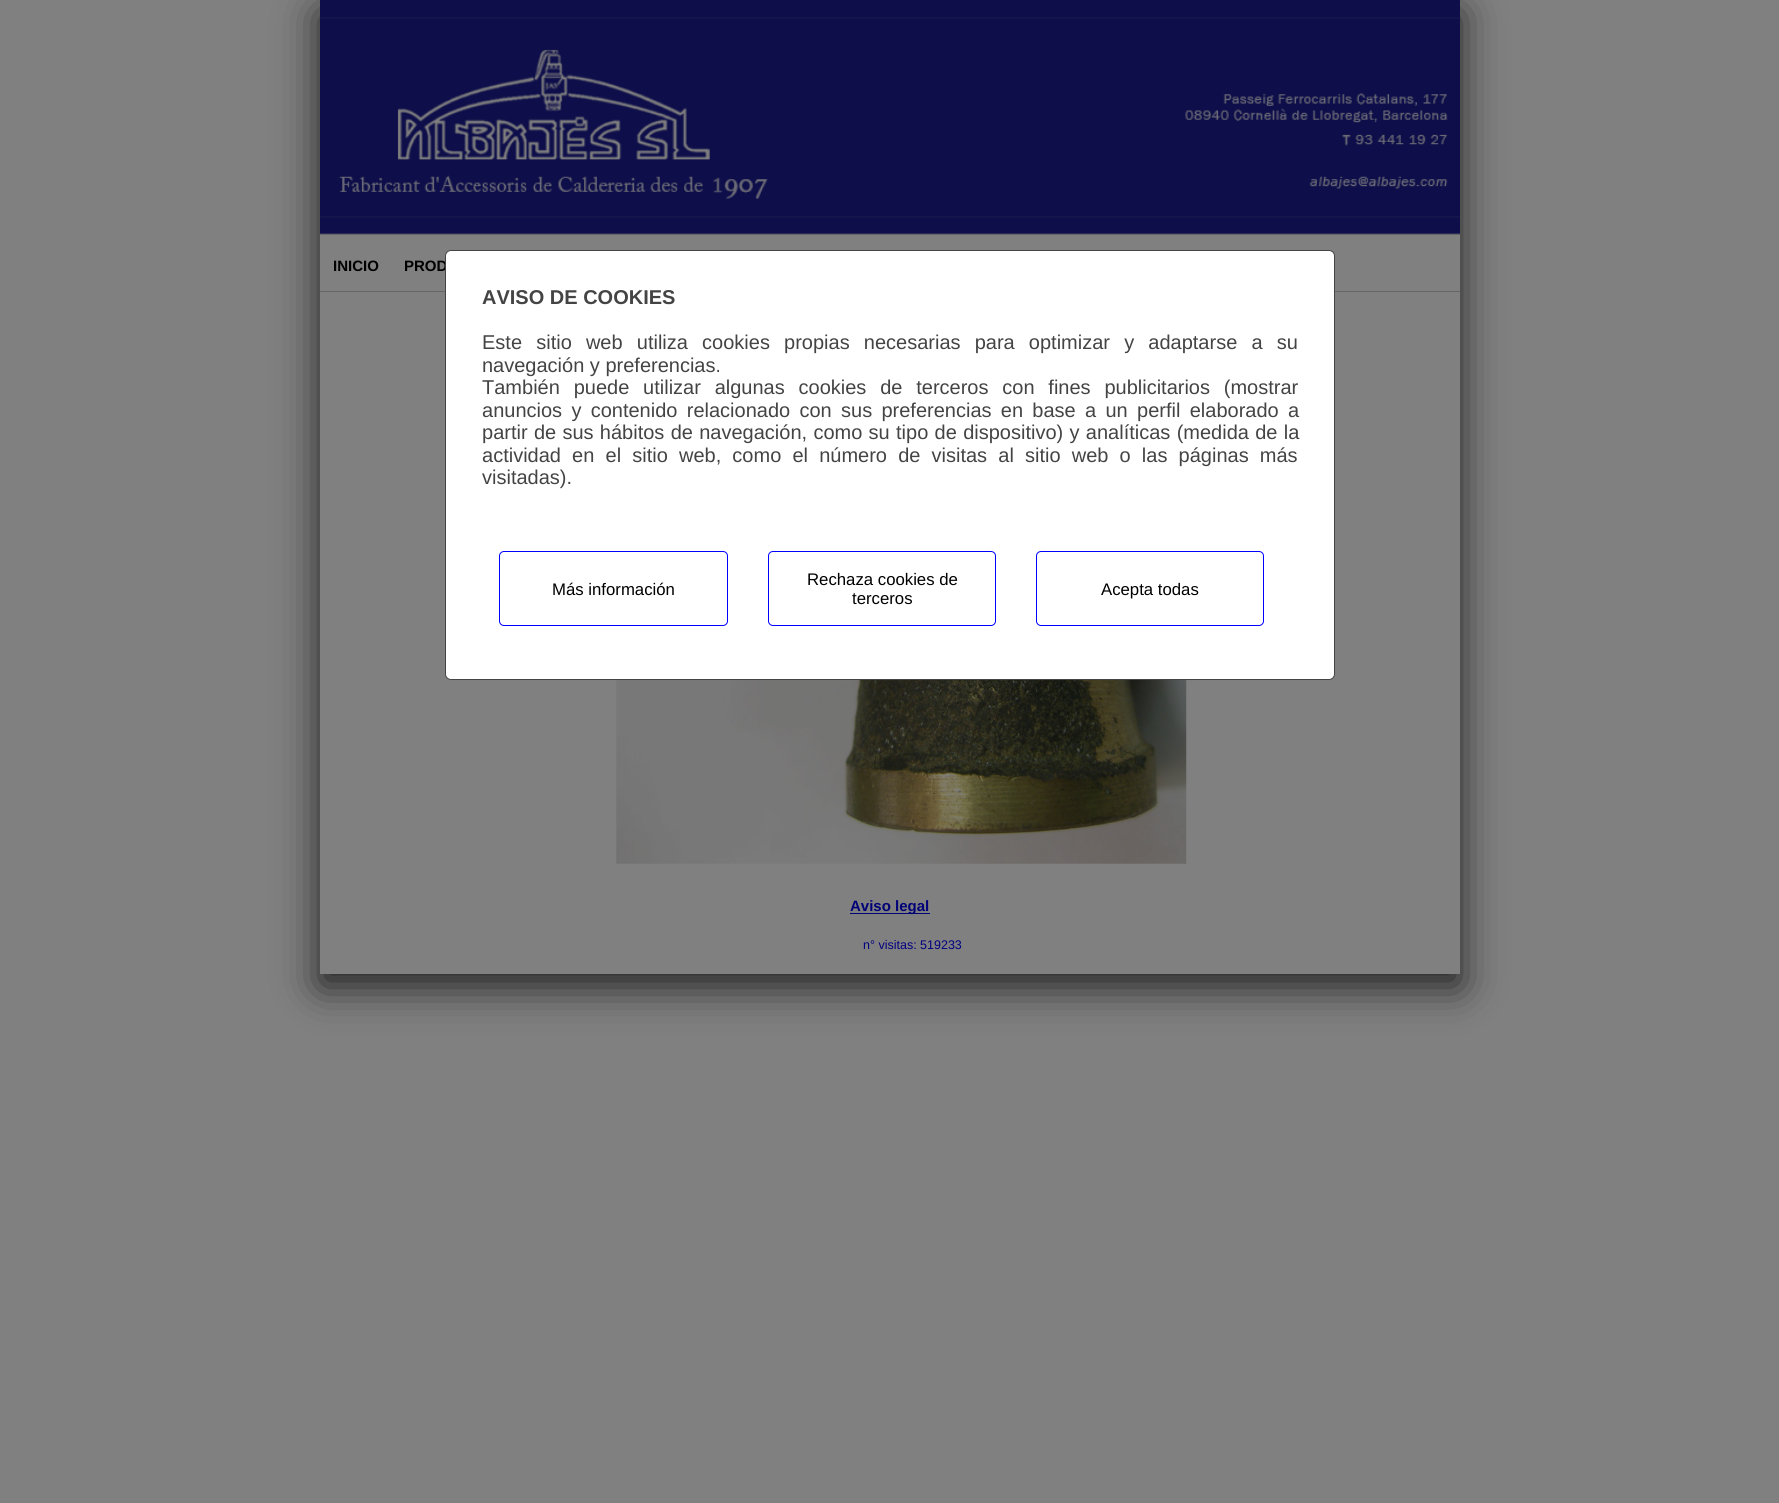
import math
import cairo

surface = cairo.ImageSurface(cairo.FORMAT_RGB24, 1779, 1503)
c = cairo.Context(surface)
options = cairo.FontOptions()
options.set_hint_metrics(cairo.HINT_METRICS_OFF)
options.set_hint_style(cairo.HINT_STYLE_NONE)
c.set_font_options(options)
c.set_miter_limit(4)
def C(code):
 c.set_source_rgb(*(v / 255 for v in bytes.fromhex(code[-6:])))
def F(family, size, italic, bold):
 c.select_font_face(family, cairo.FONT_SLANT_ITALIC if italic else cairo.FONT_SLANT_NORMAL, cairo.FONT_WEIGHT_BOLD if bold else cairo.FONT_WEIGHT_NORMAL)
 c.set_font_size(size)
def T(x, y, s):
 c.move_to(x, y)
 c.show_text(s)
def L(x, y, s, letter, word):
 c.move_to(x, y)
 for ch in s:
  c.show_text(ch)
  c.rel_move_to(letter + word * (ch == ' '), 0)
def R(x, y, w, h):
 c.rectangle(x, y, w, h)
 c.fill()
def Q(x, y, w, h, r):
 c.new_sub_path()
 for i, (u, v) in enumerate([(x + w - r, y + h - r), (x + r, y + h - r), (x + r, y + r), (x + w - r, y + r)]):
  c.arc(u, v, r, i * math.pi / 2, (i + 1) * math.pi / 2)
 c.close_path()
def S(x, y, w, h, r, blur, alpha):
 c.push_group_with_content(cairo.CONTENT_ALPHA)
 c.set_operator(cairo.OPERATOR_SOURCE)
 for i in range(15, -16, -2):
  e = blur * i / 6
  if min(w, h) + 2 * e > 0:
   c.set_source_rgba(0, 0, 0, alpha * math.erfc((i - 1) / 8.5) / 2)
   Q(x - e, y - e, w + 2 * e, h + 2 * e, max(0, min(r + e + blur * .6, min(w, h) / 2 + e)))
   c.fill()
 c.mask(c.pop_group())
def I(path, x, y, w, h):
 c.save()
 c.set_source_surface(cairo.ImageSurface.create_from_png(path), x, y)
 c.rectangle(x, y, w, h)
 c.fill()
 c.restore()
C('808080')
c.paint()
C('000000')
S(320,13,1140,973,0,20.5,.75)
C('808080')
R(320,233,1140,741)
I('1.png',320,0,1140,234)
C('666666')
R(320,234,1140,1)
R(320,291,1140,1)
F('Liberation Sans',15,0,1)
C('000000')
T(333,271,'INICIO')
T(404,271,'PROD')
C('ffffff')
Q(445.5,250.5,889,429,5.5)
c.fill_preserve()
C('444444')
c.set_line_width(1)
c.stroke()
F('Liberation Sans',20,0,1)
T(482,304,'AVISO DE COOKIES')
F('Liberation Sans',20,0,0)
L(482,349,'Este sitio web utiliza cookies propias necesarias para optimizar y adaptarse a su',0,8.6)
T(482,372,'navegación y preferencias.')
L(482,394,'También puede utilizar algunas cookies de terceros con fines publicitarios (mostrar',0,8.25)
L(482,417,'anuncios y contenido relacionado con sus preferencias en base a un perfil elaborado a',0,3.75)
L(482,439,'partir de sus hábitos de navegación, como su tipo de dispositivo) y analíticas (medida de la',0,.75)
L(482,462,'actividad en el sitio web, como el número de visitas al sitio web o las páginas más',0,5.6)
T(482,484,'visitadas).')
Q(499.5,551.5,228,74,4.5)
C('0000ff')
c.stroke()
F('Liberation Sans',16.75,0,0)
C('000000')
T(552,595,'Más información')
Q(768.5,551.5,227,74,4.5)
C('0000ff')
c.stroke()
C('000000')
T(807,585,'Rechaza cookies de')
T(852,604,'terceros')
Q(1036.5,551.5,227,74,4.5)
C('0000ff')
c.stroke()
C('000000')
T(1101,595,'Acepta todas')
I('2.png',616,680,571,184)
C('000077')
R(850,913,80,1)
F('Liberation Sans',15,0,1)
T(850,911,'Aviso legal')
F('Liberation Sans',12.5,0,0)
C('000080')
T(863,949,'n° visitas: 519233')
surface.write_to_png('o.png')
